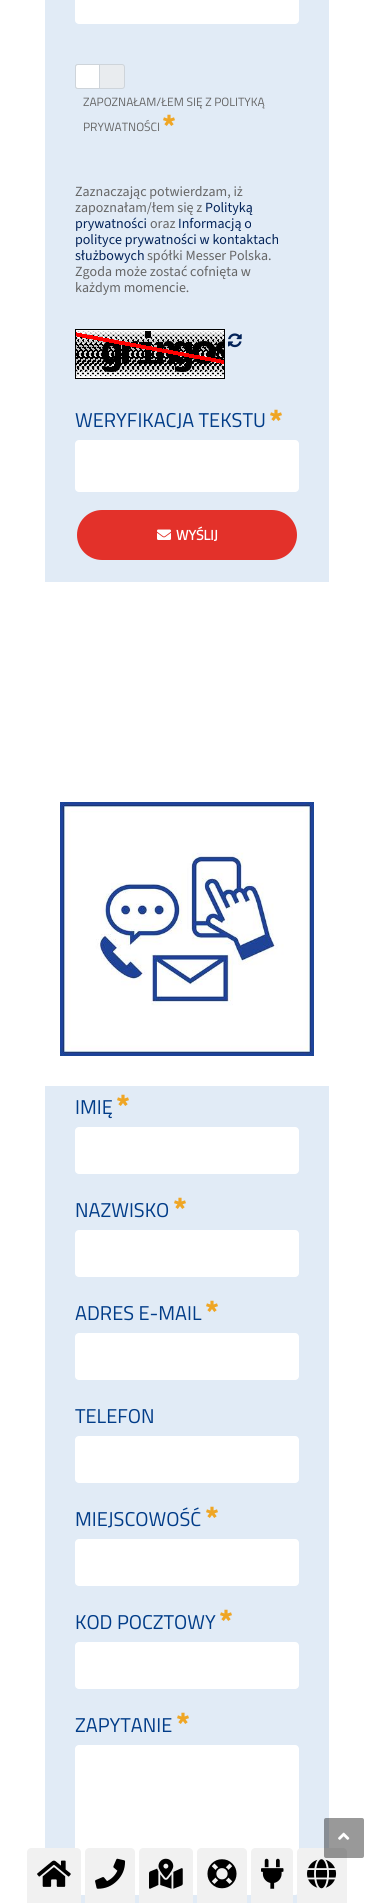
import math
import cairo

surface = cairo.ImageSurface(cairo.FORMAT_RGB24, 374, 1903)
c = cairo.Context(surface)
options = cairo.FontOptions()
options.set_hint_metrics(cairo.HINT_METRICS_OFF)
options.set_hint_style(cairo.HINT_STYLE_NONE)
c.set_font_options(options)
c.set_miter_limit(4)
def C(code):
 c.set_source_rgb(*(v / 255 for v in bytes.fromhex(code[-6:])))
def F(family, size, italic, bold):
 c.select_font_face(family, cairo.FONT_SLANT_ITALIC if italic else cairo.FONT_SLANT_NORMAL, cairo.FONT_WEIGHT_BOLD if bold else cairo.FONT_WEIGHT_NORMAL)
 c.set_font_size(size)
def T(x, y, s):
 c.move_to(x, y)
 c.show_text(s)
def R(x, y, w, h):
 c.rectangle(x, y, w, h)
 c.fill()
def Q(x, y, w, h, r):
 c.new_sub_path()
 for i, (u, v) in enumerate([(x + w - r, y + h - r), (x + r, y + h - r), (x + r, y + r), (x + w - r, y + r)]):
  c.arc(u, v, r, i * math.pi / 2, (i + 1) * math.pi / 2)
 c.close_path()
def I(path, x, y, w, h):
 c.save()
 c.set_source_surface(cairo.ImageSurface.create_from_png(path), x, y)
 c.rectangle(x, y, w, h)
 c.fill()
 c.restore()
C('ffffff')
c.paint()
C('e1ebf6')
R(45,0,284,582)
C('ffffff')
Q(75,-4,224,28,4)
c.fill()
C('e9ecef')
Q(75.5,64.5,49,24,2.5)
c.fill_preserve()
C('ced4da')
c.set_line_width(1)
c.stroke()
C('ffffff')
c.new_path()
c.move_to(78,64.5)
c.line_to(99.5,64.5)
c.line_to(99.5,88.5)
c.line_to(78,88.5)
c.curve_to(76.5,88.5,75.5,87.5,75.5,86)
c.line_to(75.5,67)
c.curve_to(75.5,65.5,76.5,64.5,78,64.5)
c.close_path()
c.fill_preserve()
C('ced4da')
c.stroke()
F('Titillium Web',12,0,0)
C('666666')
T(83,106,'ZAPOZNAŁAM/ŁEM SIĘ Z POLITYKĄ')
T(83,131,'PRYWATNOŚCI')
I('1.png',163,114,12,12)
F('Source Sans 3',14,0,0)
T(75,196,'Zaznaczając potwierdzam, iż')
T(75,212,'zapoznałam/łem się z')
C('032359')
T(205,212,'Polityką')
T(75,228,'prywatności')
C('666666')
T(150,228,'oraz')
C('032359')
T(178,228,'Informacją o')
T(75,244,'polityce prywatności w kontaktach')
T(75,260,'służbowych')
C('666666')
T(147,260,'spółki Messer Polska.')
T(75,276,'Zgoda może zostać cofnięta w')
T(75,292,'każdym momencie.')
I('2.png',75,329,150,50)
I('3.png',228,333,14,15)
F('Titillium Web',20,0,0)
C('013c88')
T(75,427,'WERYFIKACJA TEKSTU')
I('1.png',270,409,12,12)
C('ffffff')
Q(75,440,224,52,4)
c.fill()
C('e3312a')
Q(76,509,222,52,26)
c.fill_preserve()
C('e1ebf6')
c.set_line_width(2)
c.stroke()
I('4.png',157,529,14,11)
F('Titillium Web',14,0,1)
C('ffffff')
T(176,540,'WYŚLIJ')
I('5.png',60,802,254,254)
C('e1ebf6')
R(45,1086,284,817)
F('Titillium Web',20,0,0)
C('013c88')
T(75,1114,'IMIĘ')
I('1.png',117,1094,12,12)
C('ffffff')
Q(75,1127,224,47,4)
c.fill()
C('013c88')
T(75,1217,'NAZWISKO')
I('1.png',174,1197,12,12)
C('ffffff')
Q(75,1230,224,47,4)
c.fill()
C('013c88')
T(75,1320,'ADRES E-MAIL')
I('1.png',206,1300,12,12)
C('ffffff')
Q(75,1333,224,47,4)
c.fill()
C('013c88')
T(75,1423,'TELEFON')
C('ffffff')
Q(75,1436,224,47,4)
c.fill()
C('013c88')
T(75,1526,'MIEJSCOWOŚĆ')
I('1.png',206,1506,12,12)
C('ffffff')
Q(75,1539,224,47,4)
c.fill()
C('013c88')
T(75,1629,'KOD POCZTOWY')
I('1.png',220,1609,12,12)
C('ffffff')
Q(75,1642,224,47,4)
c.fill()
C('013c88')
T(75,1732,'ZAPYTANIE')
I('1.png',177,1712,12,12)
C('ffffff')
Q(75,1745,224,150,4)
c.fill()
C('f1f1f1')
c.new_path()
c.move_to(301,1848)
c.line_to(343,1848)
c.curve_to(345,1848,347,1850,347,1852)
c.line_to(347,1903)
c.line_to(297,1903)
c.line_to(297,1852)
c.curve_to(297,1850,299,1848,301,1848)
c.close_path()
c.fill()
c.set_source_rgba(0,0,0,0.4)
Q(324,1818,40,40,2)
c.fill()
I('6.png',338,1832,12,8)
C('f1f1f1')
c.new_path()
c.move_to(31,1848)
c.line_to(77,1848)
c.curve_to(79,1848,81,1850,81,1852)
c.line_to(81,1903)
c.line_to(27,1903)
c.line_to(27,1852)
c.curve_to(27,1850,29,1848,31,1848)
c.close_path()
c.fill()
I('7.png',37,1860,34,27)
c.new_path()
c.move_to(89,1848)
c.line_to(131,1848)
c.curve_to(133,1848,135,1850,135,1852)
c.line_to(135,1903)
c.line_to(85,1903)
c.line_to(85,1852)
c.curve_to(85,1850,87,1848,89,1848)
c.close_path()
c.fill()
I('8.png',95,1858,31,31)
c.new_path()
c.move_to(143,1848)
c.line_to(189,1848)
c.curve_to(191,1848,193,1850,193,1852)
c.line_to(193,1903)
c.line_to(139,1903)
c.line_to(139,1852)
c.curve_to(139,1850,141,1848,143,1848)
c.close_path()
c.fill()
I('9.png',149,1858,34,31)
c.new_path()
c.move_to(201,1848)
c.line_to(243,1848)
c.curve_to(245,1848,247,1850,247,1852)
c.line_to(247,1903)
c.line_to(197,1903)
c.line_to(197,1852)
c.curve_to(197,1850,199,1848,201,1848)
c.close_path()
c.fill()
I('10.png',207,1859,30,30)
c.new_path()
c.move_to(255,1848)
c.line_to(289,1848)
c.curve_to(291,1848,293,1850,293,1852)
c.line_to(293,1903)
c.line_to(251,1903)
c.line_to(251,1852)
c.curve_to(251,1850,253,1848,255,1848)
c.close_path()
c.fill()
I('11.png',261,1858,23,31)
I('12.png',307,1859,30,30)
surface.write_to_png('o.png')
